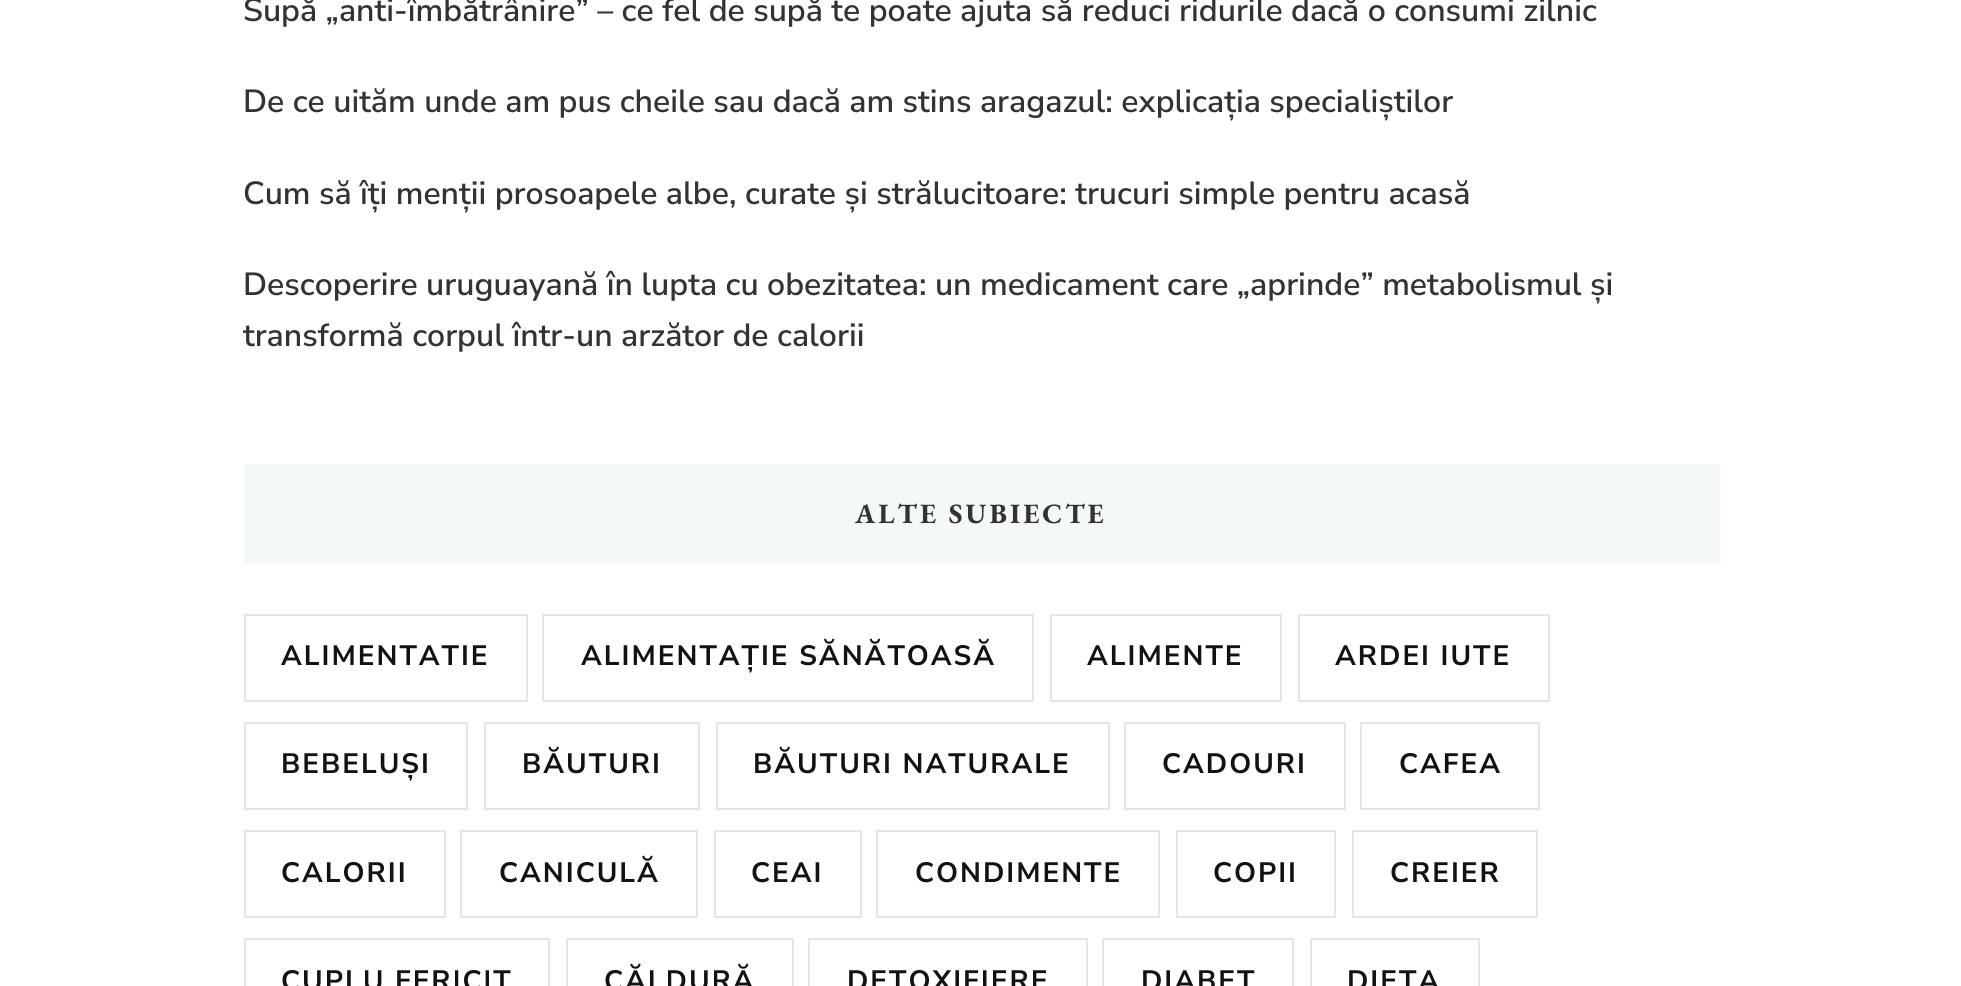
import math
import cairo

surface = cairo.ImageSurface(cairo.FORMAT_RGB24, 1961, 986)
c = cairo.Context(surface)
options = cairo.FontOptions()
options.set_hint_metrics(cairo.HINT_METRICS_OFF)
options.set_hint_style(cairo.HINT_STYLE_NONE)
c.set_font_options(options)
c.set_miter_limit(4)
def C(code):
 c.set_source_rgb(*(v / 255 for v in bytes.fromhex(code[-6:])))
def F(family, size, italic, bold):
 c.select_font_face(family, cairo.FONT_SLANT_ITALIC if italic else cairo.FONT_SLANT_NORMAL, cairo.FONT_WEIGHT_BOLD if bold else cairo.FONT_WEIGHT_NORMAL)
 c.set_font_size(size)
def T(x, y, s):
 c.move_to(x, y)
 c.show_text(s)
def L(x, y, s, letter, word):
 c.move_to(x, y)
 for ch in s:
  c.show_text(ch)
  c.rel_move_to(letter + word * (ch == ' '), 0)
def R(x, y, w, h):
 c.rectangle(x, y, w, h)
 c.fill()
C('ffffff')
c.paint()
F('Nunito Sans SemiBold',32,0,0)
C('333333')
T(243,21,'Supă „anti-îmbătrânire” – ce fel de supă te poate ajuta să reduci ridurile dacă o consumi zilnic')
T(243,112,'De ce uităm unde am pus cheile sau dacă am stins aragazul: explicația specialiștilor')
T(243,204,'Cum să îți menții prosoapele albe, curate și strălucitoare: trucuri simple pentru acasă')
T(243,295,'Descoperire uruguayană în lupta cu obezitatea: un medicament care „aprinde” metabolismul și')
T(243,346,'transformă corpul într-un arzător de calorii')
C('f4f9f8')
R(244,464,1476,100)
F('EB Garamond',28,0,1)
C('333333')
L(855,523,'ALTE SUBIECTE',3,0)
c.rectangle(245,615,282,86)
C('e6e6e6')
c.stroke()
F('Nunito Sans',28,0,1)
C('121212')
L(281,665,'ALIMENTATIE',2,0)
c.rectangle(543,615,490,86)
C('e6e6e6')
c.stroke()
C('121212')
L(581,665,'ALIMENTAȚIE SĂNĂTOASĂ',2,0)
c.rectangle(1051,615,230,86)
C('e6e6e6')
c.stroke()
C('121212')
L(1087,665,'ALIMENTE',2,0)
c.rectangle(1299,615,250,86)
C('e6e6e6')
c.stroke()
C('121212')
L(1335,665,'ARDEI IUTE',2,0)
c.rectangle(245,723,222,86)
C('e6e6e6')
c.stroke()
C('121212')
L(281,773,'BEBELUȘI',2,0)
c.rectangle(485,723,214,86)
C('e6e6e6')
c.stroke()
C('121212')
L(522,773,'BĂUTURI',2,0)
c.rectangle(717,723,392,86)
C('e6e6e6')
c.stroke()
C('121212')
L(753,773,'BĂUTURI NATURALE',2,0)
c.rectangle(1125,723,220,86)
C('e6e6e6')
c.stroke()
C('121212')
L(1162,773,'CADOURI',2,0)
c.rectangle(1361,723,178,86)
C('e6e6e6')
c.stroke()
C('121212')
L(1399,773,'CAFEA',2,0)
c.rectangle(245,831,200,86)
C('e6e6e6')
c.stroke()
C('121212')
L(281,882,'CALORII',2,0)
c.rectangle(461,831,236,86)
C('e6e6e6')
c.stroke()
C('121212')
L(499,882,'CANICULĂ',2,0)
c.rectangle(715,831,146,86)
C('e6e6e6')
c.stroke()
C('121212')
L(751,882,'CEAI',2,0)
c.rectangle(877,831,282,86)
C('e6e6e6')
c.stroke()
C('121212')
L(915,882,'CONDIMENTE',2,0)
c.rectangle(1177,831,158,86)
C('e6e6e6')
c.stroke()
C('121212')
L(1213,882,'COPII',2,0)
c.rectangle(1353,831,184,86)
C('e6e6e6')
c.stroke()
C('121212')
L(1390,882,'CREIER',2,0)
c.rectangle(245,939,304,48)
C('e6e6e6')
c.stroke()
C('121212')
L(281,990,'CUPLU FERICIT',2,0)
c.rectangle(567,939,226,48)
C('e6e6e6')
c.stroke()
C('121212')
L(604,990,'CĂLDURĂ',2,0)
c.rectangle(809,939,278,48)
C('e6e6e6')
c.stroke()
C('121212')
L(847,990,'DETOXIFIERE',2,0)
c.rectangle(1103,939,190,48)
C('e6e6e6')
c.stroke()
C('121212')
L(1141,990,'DIABET',2,0)
c.rectangle(1311,939,168,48)
C('e6e6e6')
c.stroke()
C('121212')
L(1347,990,'DIETA',2,0)
surface.write_to_png('o.png')
